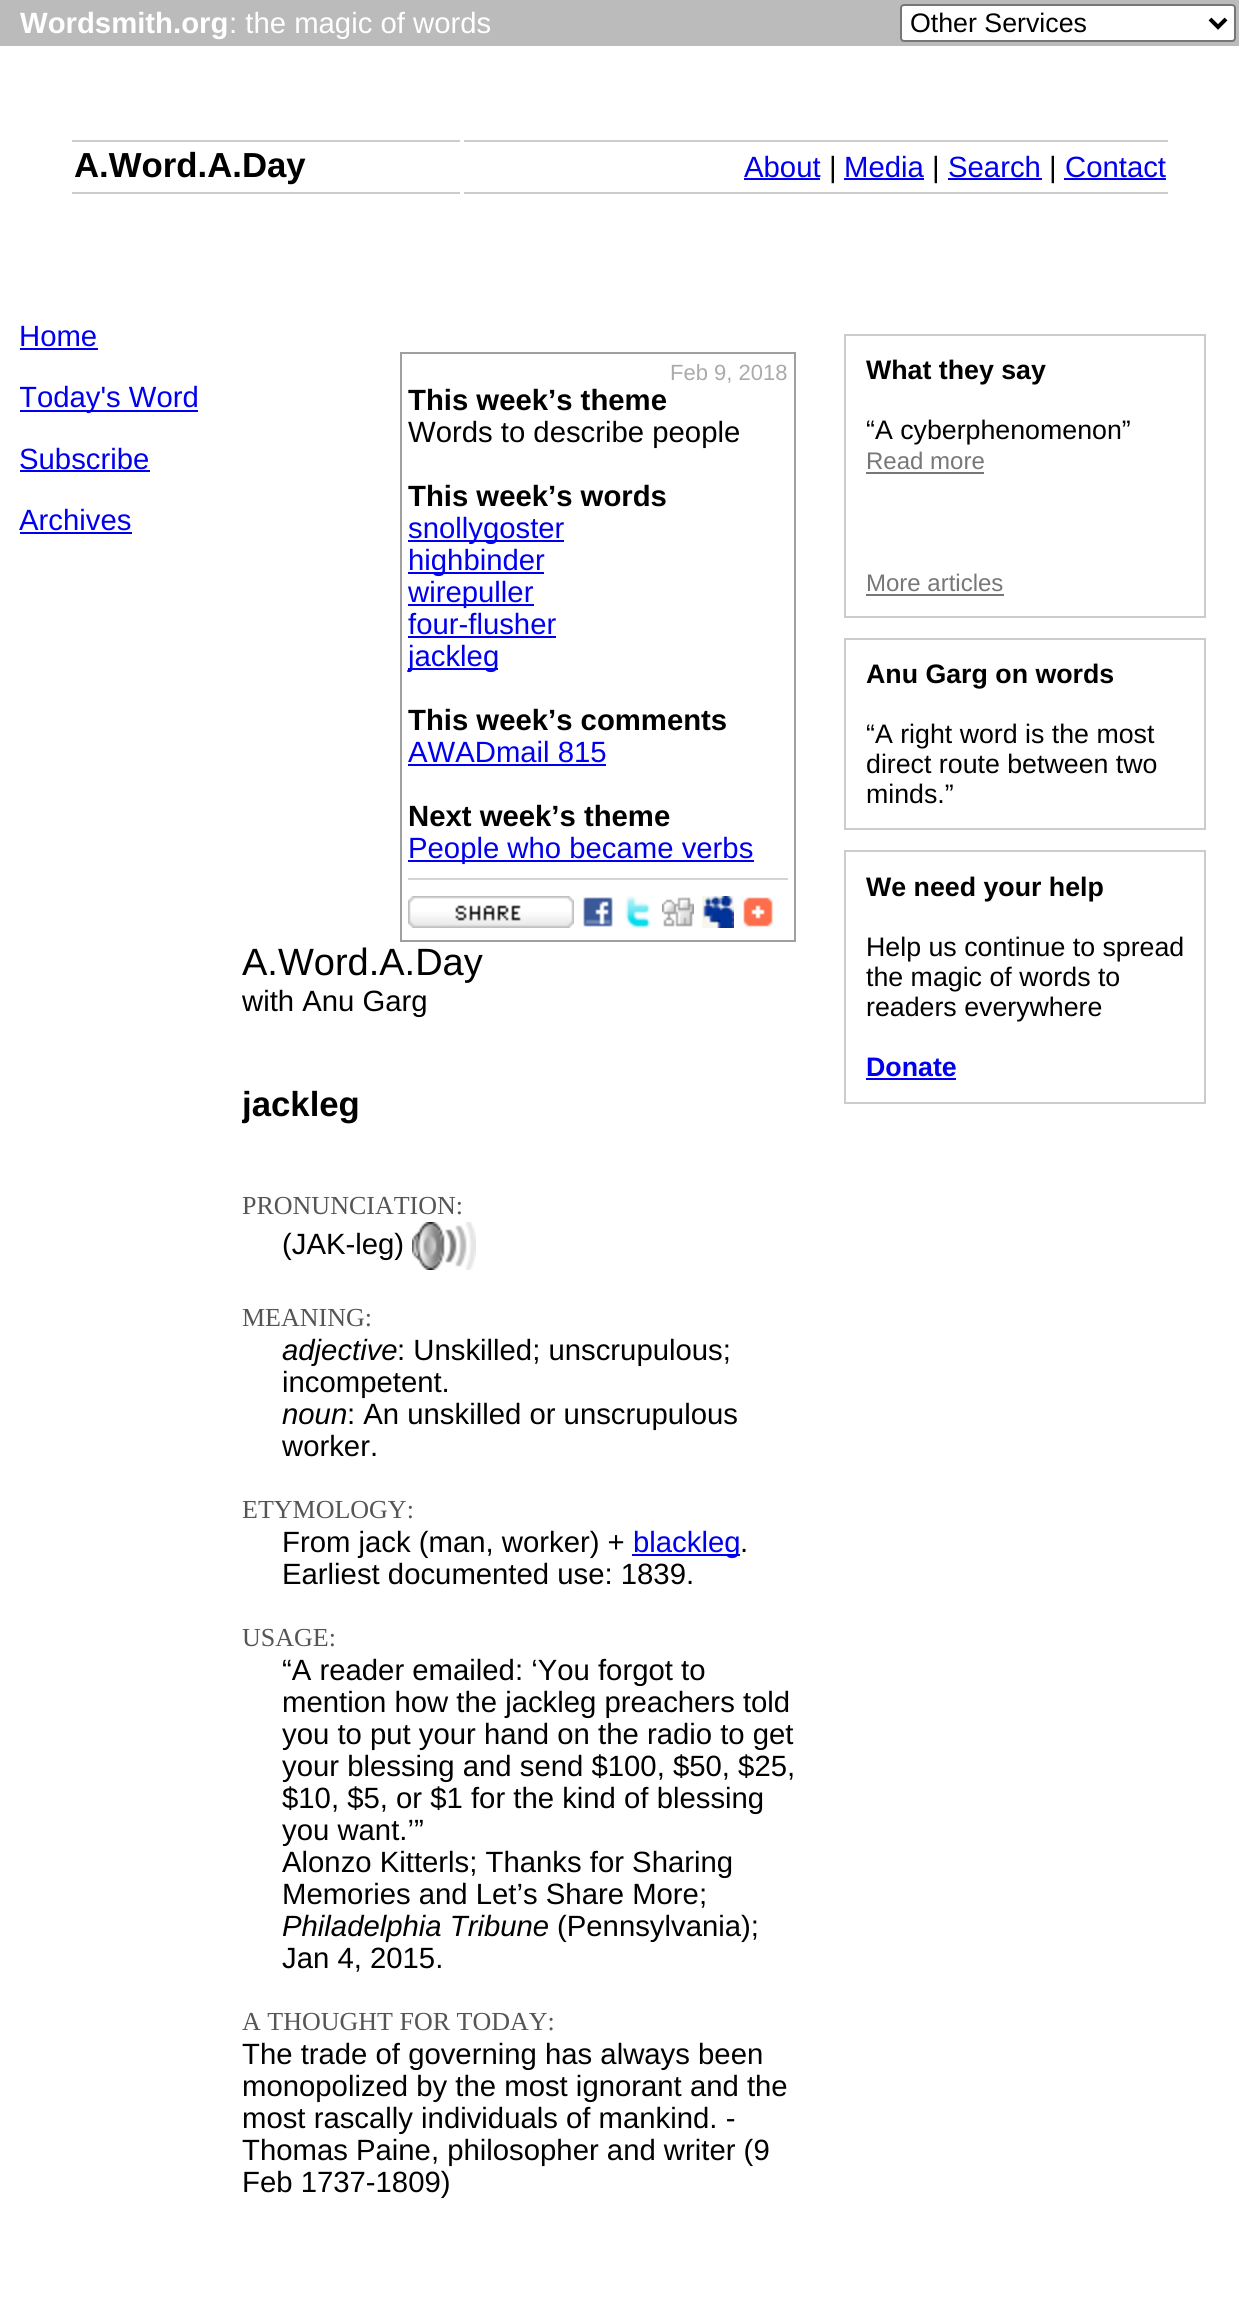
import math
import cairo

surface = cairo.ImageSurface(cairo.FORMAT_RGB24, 1239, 2308)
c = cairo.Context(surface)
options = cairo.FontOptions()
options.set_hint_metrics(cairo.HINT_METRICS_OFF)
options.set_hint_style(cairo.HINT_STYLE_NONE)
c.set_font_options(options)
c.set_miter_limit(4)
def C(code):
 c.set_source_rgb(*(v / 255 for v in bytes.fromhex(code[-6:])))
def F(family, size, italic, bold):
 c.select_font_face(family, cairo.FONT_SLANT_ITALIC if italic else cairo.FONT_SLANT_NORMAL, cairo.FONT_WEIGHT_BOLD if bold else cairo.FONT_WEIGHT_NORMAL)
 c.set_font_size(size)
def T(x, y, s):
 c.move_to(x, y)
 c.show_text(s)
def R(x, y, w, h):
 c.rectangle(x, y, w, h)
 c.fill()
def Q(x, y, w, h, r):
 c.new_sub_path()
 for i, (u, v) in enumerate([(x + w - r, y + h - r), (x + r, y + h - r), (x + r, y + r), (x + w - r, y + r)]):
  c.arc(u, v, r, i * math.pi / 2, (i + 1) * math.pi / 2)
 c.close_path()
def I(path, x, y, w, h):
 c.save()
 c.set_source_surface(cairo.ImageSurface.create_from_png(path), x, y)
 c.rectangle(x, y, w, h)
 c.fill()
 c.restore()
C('ffffff')
c.paint()
C('bbbbbb')
R(0,0,1239,46)
F('Liberation Sans',29.3,0,1)
C('ffffff')
T(20,33,'Wordsmith.org')
F('Liberation Sans',29.3,0,0)
T(229,33,': the magic of words')
Q(901,5,334,36,3)
c.fill_preserve()
C('767676')
c.stroke()
c.new_path()
c.move_to(1210,19)
c.line_to(1218,27)
c.line_to(1226,19)
C('000000')
c.set_line_width(4)
c.stroke()
F('Liberation Sans',26.75,0,0)
T(910,32,'Other Services')
C('cccccc')
R(72,140,388,2)
R(72,192,388,2)
F('Liberation Sans',34.75,0,1)
C('000000')
T(74,177,'A.Word.A.Day')
C('cccccc')
R(464,140,704,2)
R(464,192,704,2)
F('Liberation Sans',29.3,0,0)
C('0000ee')
T(744,177,'About')
R(744,178,76,2)
C('000000')
T(829,177,'|')
C('0000ee')
T(844,177,'Media')
R(844,178,80,2)
C('000000')
T(932,177,'|')
C('0000ee')
T(948,177,'Search')
R(948,178,94,2)
C('000000')
T(1049,177,'|')
C('0000ee')
T(1065,177,'Contact')
R(1064,178,102,2)
T(19,346,'Home')
R(20,348,78,2)
R(20,410,178,2)
c.save()
c.rectangle(20,382,186,32)
c.clip()
T(19,407,'Today\'s Word')
c.restore()
T(19,469,'Subscribe')
R(20,470,130,2)
T(19,530,'Archives')
R(20,532,112,2)
c.rectangle(401,353,394,588)
C('9f9f9f')
c.set_line_width(2)
c.stroke()
F('Liberation Sans',22,0,0)
C('aaaaaa')
T(670,380,'Feb 9, 2018')
F('Liberation Sans',29.3,0,1)
C('000000')
T(408,410,'This week’s theme')
F('Liberation Sans',29.3,0,0)
T(408,442,'Words to describe people')
F('Liberation Sans',29.3,0,1)
T(408,506,'This week’s words')
C('0000ee')
R(408,540,156,2)
F('Liberation Sans',29.3,0,0)
T(408,538,'snollygoster')
R(408,572,136,2)
T(408,570,'highbinder')
R(408,604,126,2)
T(408,602,'wirepuller')
T(408,634,'four-flusher')
R(408,636,148,2)
R(408,668,90,2)
T(408,666,'jackleg')
F('Liberation Sans',29.3,0,1)
C('000000')
T(408,730,'This week’s comments')
F('Liberation Sans',29.3,0,0)
C('0000ee')
T(408,762,'AWADmail 815')
R(408,764,198,2)
F('Liberation Sans',29.3,0,1)
C('000000')
T(408,826,'Next week’s theme')
C('0000ee')
R(408,860,346,2)
F('Liberation Sans',29.3,0,0)
T(408,858,'People who became verbs')
C('d4d4d4')
R(408,878,380,2)
I('1.png',408,896,166,32)
I('2.png',583,897,30,30)
I('3.png',625,896,26,32)
I('4.png',662,897,32,30)
I('5.png',702,896,32,32)
I('6.png',743,897,30,30)
F('Liberation Sans',38,0,0)
C('000000')
T(242,975,'A.Word.A.Day')
F('Liberation Sans',29.3,0,0)
T(242,1011,'with Anu Garg')
c.save()
c.rectangle(242,320,554,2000)
c.clip()
F('Liberation Sans',34.75,0,1)
T(242,1116,'jackleg')
c.restore()
F('Liberation Serif',26,0,0)
C('555555')
T(242,1214,'PRONUNCIATION:')
F('Liberation Sans',29.3,0,0)
C('000000')
T(282,1254,'(JAK-leg)')
I('7.png',412,1222,64,48)
F('Liberation Serif',26,0,0)
C('555555')
T(242,1326,'MEANING:')
F('Liberation Sans',29.3,1,0)
C('000000')
T(282,1360,'adjective')
F('Liberation Sans',29.3,0,0)
T(397,1360,': Unskilled; unscrupulous;')
T(282,1392,'incompetent.')
F('Liberation Sans',29.3,1,0)
T(282,1424,'noun')
F('Liberation Sans',29.3,0,0)
T(347,1424,': An unskilled or unscrupulous')
T(282,1456,'worker.')
F('Liberation Serif',26,0,0)
C('555555')
T(242,1518,'ETYMOLOGY:')
F('Liberation Sans',29.3,0,0)
C('000000')
T(282,1552,'From jack (man, worker) +')
C('0000ee')
R(632,1554,108,2)
T(633,1552,'blackleg')
C('000000')
T(740,1552,'.')
T(282,1584,'Earliest documented use: 1839.')
F('Liberation Serif',26,0,0)
C('555555')
T(242,1646,'USAGE:')
F('Liberation Sans',29.3,0,0)
C('000000')
T(282,1680,'“A reader emailed: ‘You forgot to')
T(282,1712,'mention how the jackleg preachers told')
T(282,1744,'you to put your hand on the radio to get')
T(282,1776,'your blessing and send $100, $50, $25,')
T(282,1808,'$10, $5, or $1 for the kind of blessing')
T(282,1840,'you want.’”')
T(282,1872,'Alonzo Kitterls; Thanks for Sharing')
T(282,1904,'Memories and Let’s Share More;')
F('Liberation Sans',29.3,1,0)
T(282,1936,'Philadelphia Tribune')
F('Liberation Sans',29.3,0,0)
T(557,1936,'(Pennsylvania);')
T(282,1968,'Jan 4, 2015.')
F('Liberation Serif',26,0,0)
C('555555')
T(242,2030,'A THOUGHT FOR TODAY:')
F('Liberation Sans',29.3,0,0)
C('000000')
T(242,2064,'The trade of governing has always been')
T(242,2096,'monopolized by the most ignorant and the')
T(242,2128,'most rascally individuals of mankind. -')
T(242,2160,'Thomas Paine, philosopher and writer (9')
T(242,2192,'Feb 1737-1809)')
c.rectangle(845,335,360,282)
C('cccccc')
c.stroke()
F('Liberation Sans',26.75,0,1)
C('000000')
T(866,379,'What they say')
F('Liberation Sans',26.75,0,0)
T(866,439,'“A cyberphenomenon”')
F('Liberation Sans',24,0,0)
C('777777')
T(866,469,'Read more')
R(866,472,118,2)
T(866,591,'More articles')
R(866,594,138,2)
c.rectangle(845,639,360,190)
C('cccccc')
c.stroke()
F('Liberation Sans',26.75,0,1)
C('000000')
T(866,683,'Anu Garg on words')
F('Liberation Sans',26.75,0,0)
T(866,743,'“A right word is the most')
T(866,773,'direct route between two')
T(866,803,'minds.”')
c.rectangle(845,851,360,252)
C('cccccc')
c.stroke()
F('Liberation Sans',26.75,0,1)
C('000000')
T(866,896,'We need your help')
F('Liberation Sans',26.75,0,0)
T(866,956,'Help us continue to spread')
T(866,986,'the magic of words to')
T(866,1016,'readers everywhere')
F('Liberation Sans',26.75,0,1)
C('0000ee')
T(866,1076,'Donate')
R(866,1078,90,2)
surface.write_to_png('o.png')
